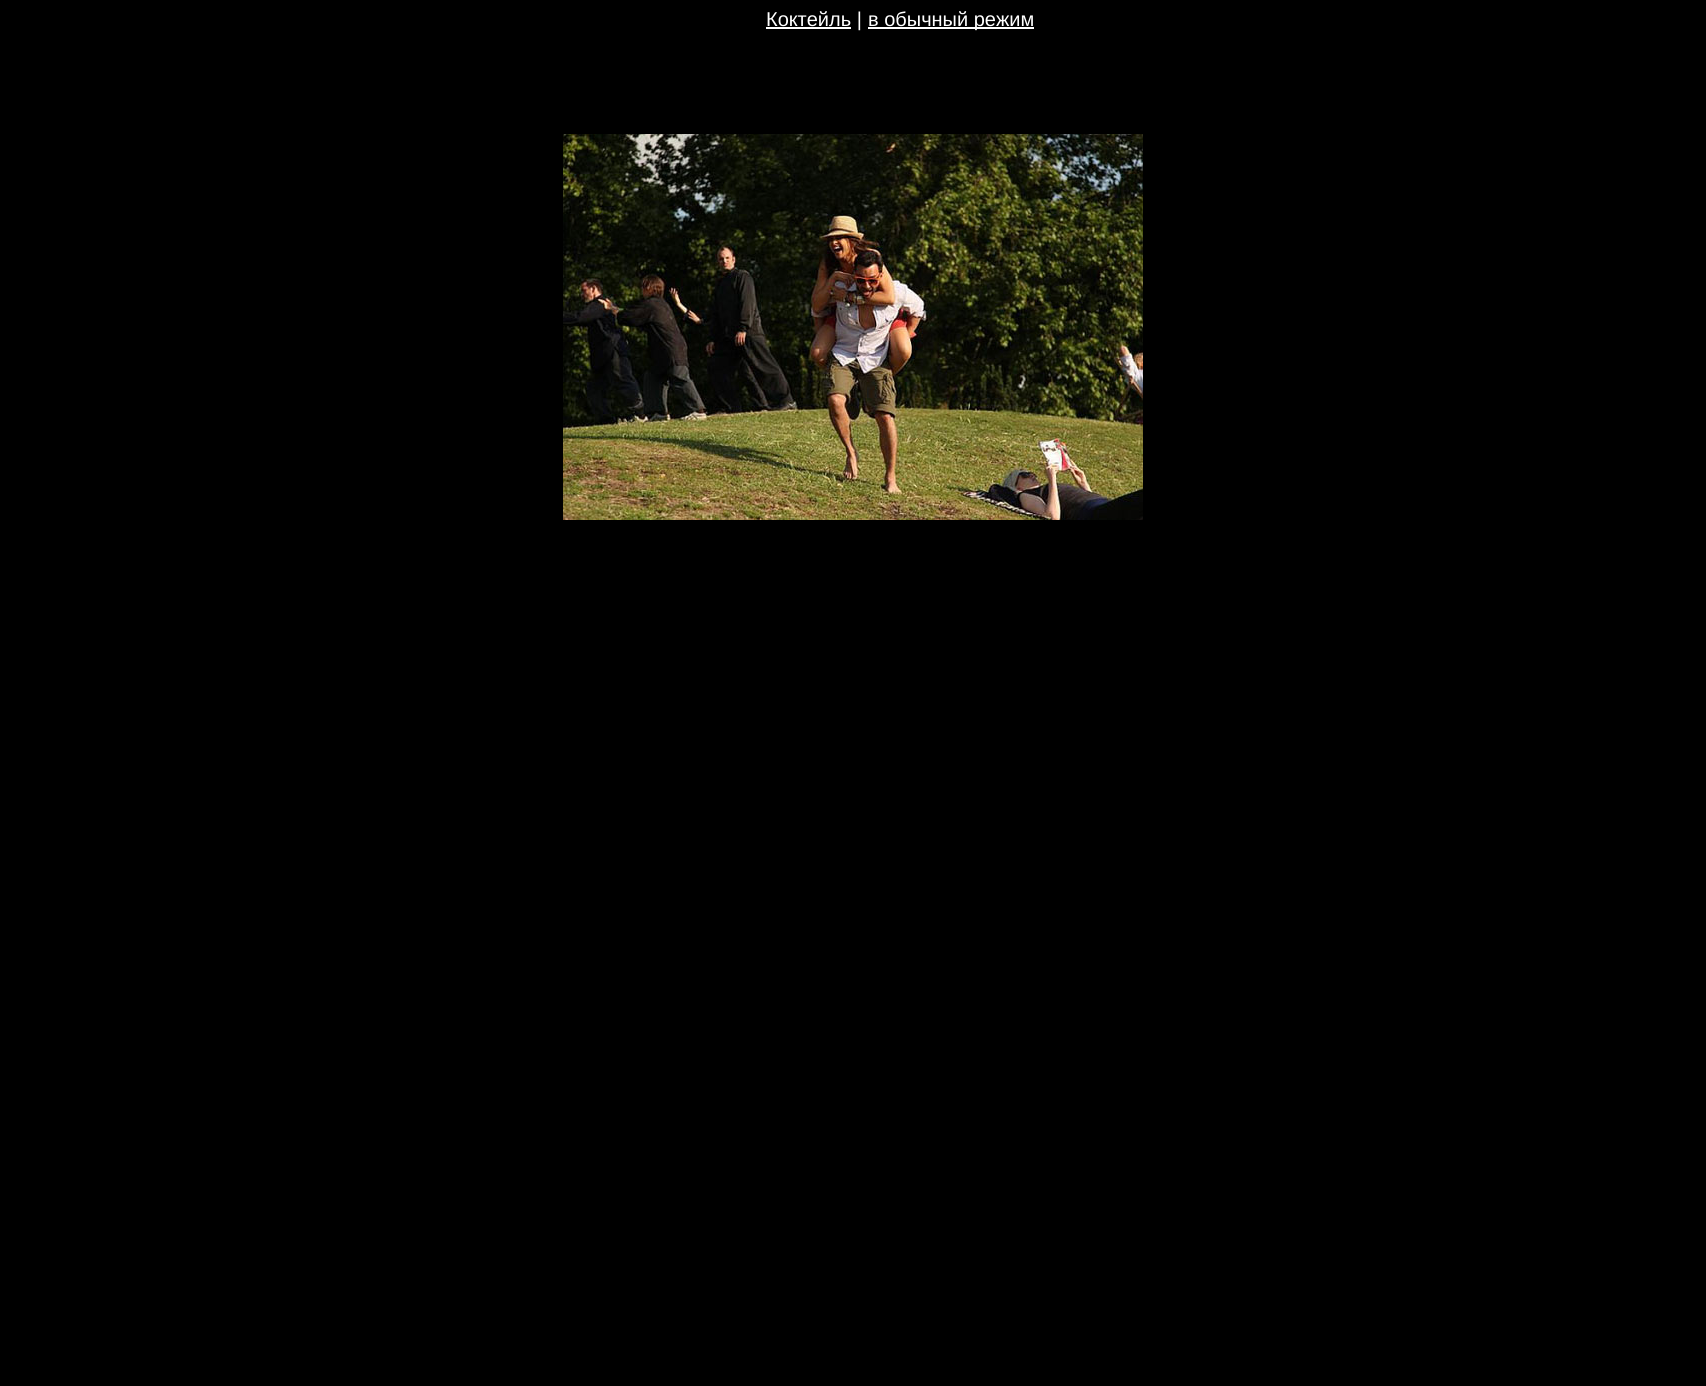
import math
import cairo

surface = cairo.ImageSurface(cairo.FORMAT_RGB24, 1706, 1386)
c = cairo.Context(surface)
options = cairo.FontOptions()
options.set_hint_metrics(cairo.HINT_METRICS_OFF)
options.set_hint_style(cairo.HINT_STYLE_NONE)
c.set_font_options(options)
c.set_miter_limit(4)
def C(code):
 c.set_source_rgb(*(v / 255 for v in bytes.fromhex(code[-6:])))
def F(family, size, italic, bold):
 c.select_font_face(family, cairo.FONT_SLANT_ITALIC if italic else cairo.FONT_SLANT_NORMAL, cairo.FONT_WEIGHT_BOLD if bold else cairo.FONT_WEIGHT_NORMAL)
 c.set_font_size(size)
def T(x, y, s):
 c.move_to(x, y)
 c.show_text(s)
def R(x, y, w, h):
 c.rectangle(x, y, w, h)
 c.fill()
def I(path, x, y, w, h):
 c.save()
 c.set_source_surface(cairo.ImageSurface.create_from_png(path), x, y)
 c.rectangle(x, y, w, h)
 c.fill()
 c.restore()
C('000000')
c.paint()
C('ffffff')
R(766,27,85,2)
F('Liberation Sans',20,0,0)
T(766,26,'Коктейль |')
R(868,27,166,2)
T(868,26,'в обычный режим')
I('1.png',563,134,580,386)
surface.write_to_png('o.png')
